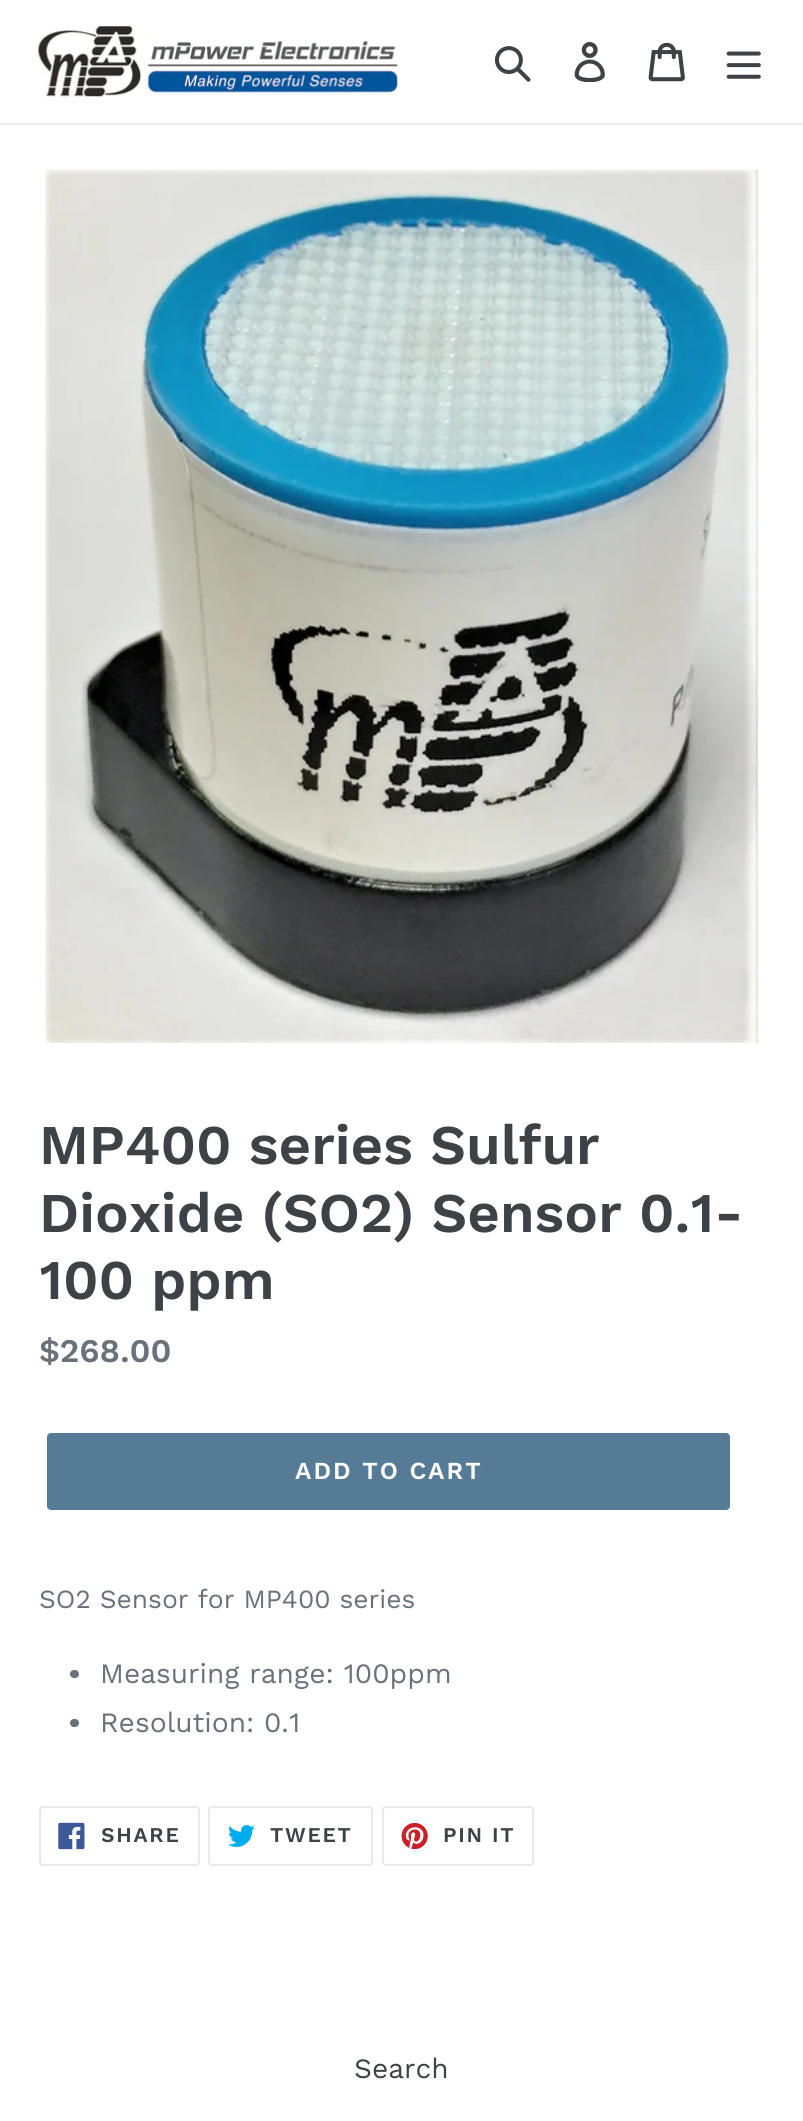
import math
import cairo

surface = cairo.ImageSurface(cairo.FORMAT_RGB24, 803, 2121)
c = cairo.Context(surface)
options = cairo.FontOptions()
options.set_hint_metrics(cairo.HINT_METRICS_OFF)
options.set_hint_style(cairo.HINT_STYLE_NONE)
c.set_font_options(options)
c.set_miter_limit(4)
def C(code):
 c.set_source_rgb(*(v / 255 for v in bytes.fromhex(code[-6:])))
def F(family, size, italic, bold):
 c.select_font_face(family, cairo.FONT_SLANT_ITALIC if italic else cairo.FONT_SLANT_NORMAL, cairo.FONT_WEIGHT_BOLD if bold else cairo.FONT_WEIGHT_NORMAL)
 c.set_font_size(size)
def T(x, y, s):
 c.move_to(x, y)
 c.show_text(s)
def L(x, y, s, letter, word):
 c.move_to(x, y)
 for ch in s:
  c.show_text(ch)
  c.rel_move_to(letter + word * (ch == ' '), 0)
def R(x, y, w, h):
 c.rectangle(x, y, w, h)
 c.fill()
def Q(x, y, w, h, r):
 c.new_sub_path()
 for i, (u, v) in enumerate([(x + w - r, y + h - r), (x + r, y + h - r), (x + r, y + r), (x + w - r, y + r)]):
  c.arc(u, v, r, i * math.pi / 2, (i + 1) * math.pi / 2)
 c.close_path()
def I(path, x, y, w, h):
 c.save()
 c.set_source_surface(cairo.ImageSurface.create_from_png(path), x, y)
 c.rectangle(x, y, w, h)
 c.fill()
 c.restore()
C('ffffff')
c.paint()
C('e8e9eb')
R(0,123,803,2)
I('1.png',38,26,360,71)
I('2.png',494,46,37,36)
I('3.png',574,42,31,40)
I('4.png',648,42,37,40)
I('5.png',726,51,35,28)
I('6.png',45,169,713,874)
F('Work Sans SemiBold',56,0,0)
C('3d4246')
T(39,1164,'MP400 series Sulfur')
T(39,1232,'Dioxide (SO2) Sensor 0.1-')
T(39,1299,'100 ppm')
F('Work Sans SemiBold',33,0,0)
C('69727b')
T(39,1362,'$268.00')
C('557b97')
Q(47,1433,683,77,4)
c.fill()
F('Work Sans SemiBold',24.5,0,0)
C('ffffff')
L(295,1479,'ADD TO CART',2,0)
F('Work Sans',26.25,0,0)
C('69727b')
T(39,1608,'SO2 Sensor for MP400 series')
Q(70,1670,9,8,4)
c.fill()
F('Work Sans',28,0,0)
T(100,1683,'Measuring range: 100ppm')
Q(70,1719,9,8,4)
c.fill()
T(100,1732,'Resolution: 0.1')
Q(40,1807,159,58,3)
C('e8e9eb')
c.stroke()
I('7.png',58,1822,27,28)
F('Work Sans SemiBold',21,0,0)
C('3d4246')
L(101,1842,'SHARE',1.75,0)
Q(209,1807,163,58,3)
C('e8e9eb')
c.stroke()
I('8.png',228,1825,27,22)
C('3d4246')
L(270,1842,'TWEET',1.75,0)
Q(383,1807,150,58,3)
C('e8e9eb')
c.stroke()
I('9.png',401,1822,27,28)
C('3d4246')
L(443,1842,'PIN IT',1.75,0)
F('Work Sans',28,0,0)
T(354,2078,'Search')
surface.write_to_png('o.png')
